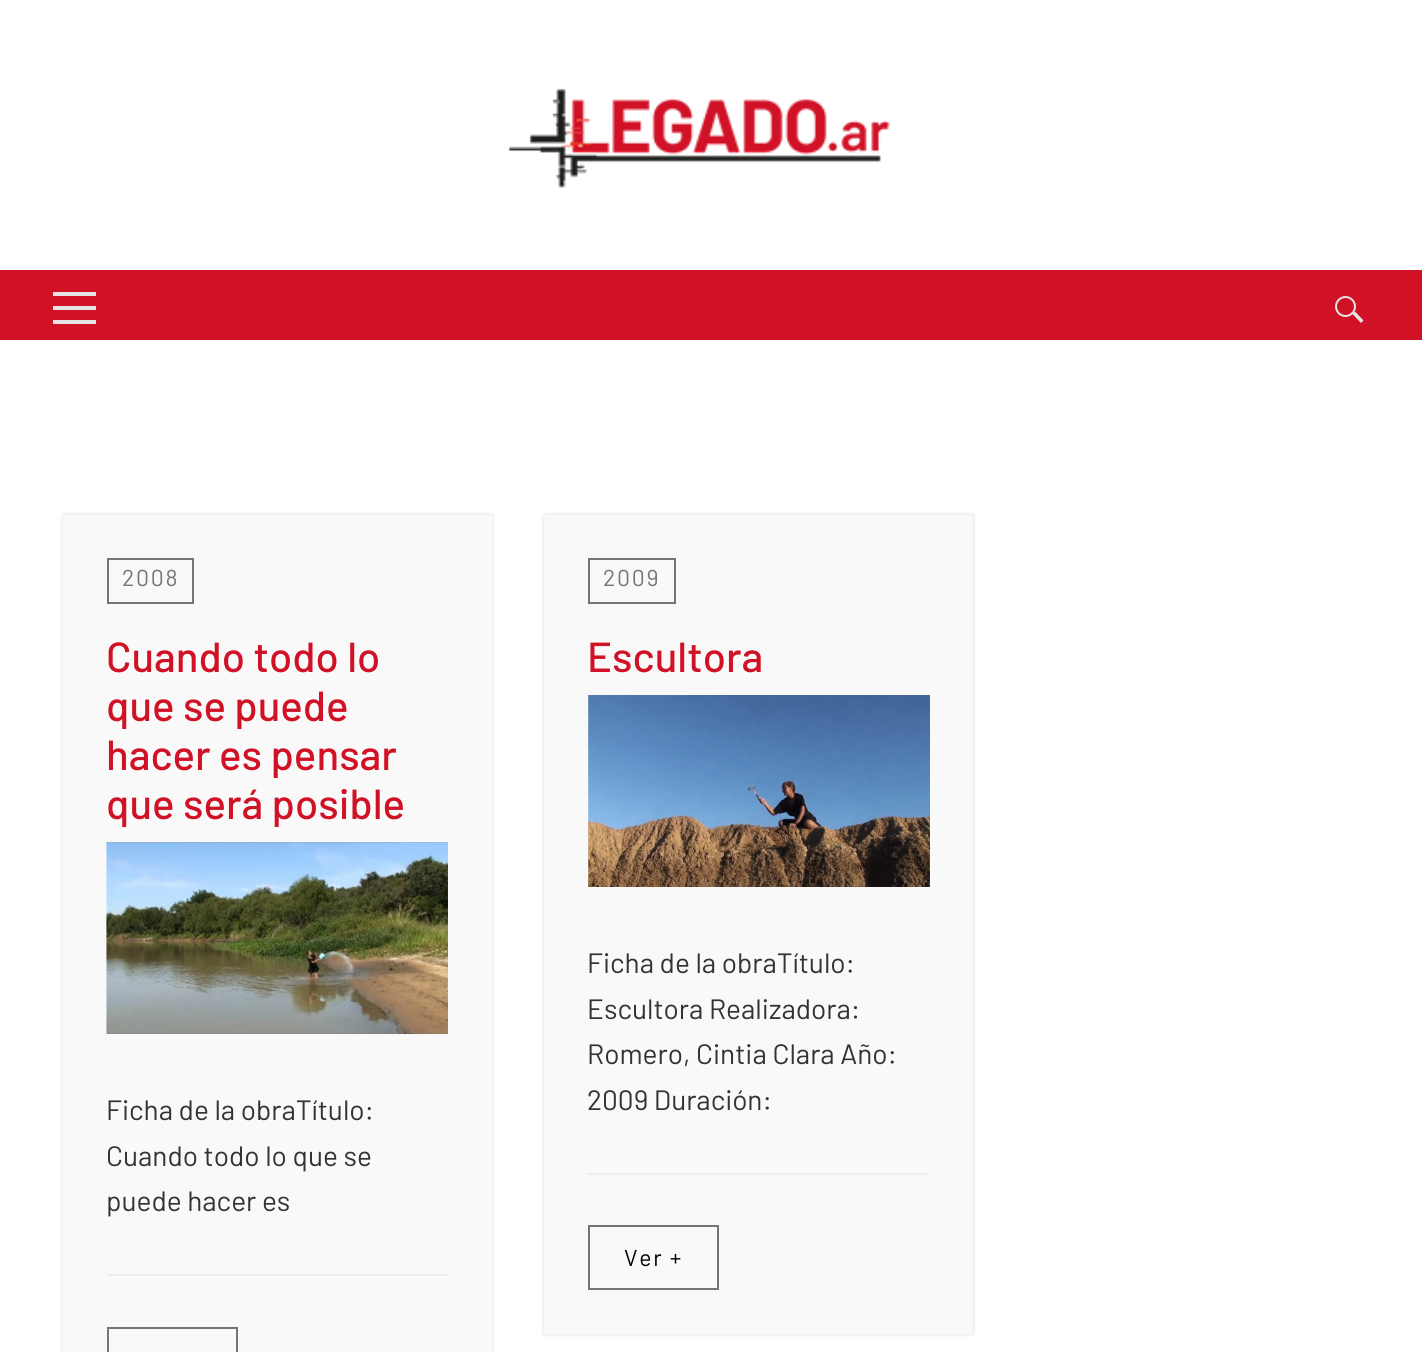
import math
import cairo

surface = cairo.ImageSurface(cairo.FORMAT_RGB24, 1422, 1352)
c = cairo.Context(surface)
options = cairo.FontOptions()
options.set_hint_metrics(cairo.HINT_METRICS_OFF)
options.set_hint_style(cairo.HINT_STYLE_NONE)
c.set_font_options(options)
c.set_miter_limit(4)
def C(code):
 c.set_source_rgb(*(v / 255 for v in bytes.fromhex(code[-6:])))
def F(family, size, italic, bold):
 c.select_font_face(family, cairo.FONT_SLANT_ITALIC if italic else cairo.FONT_SLANT_NORMAL, cairo.FONT_WEIGHT_BOLD if bold else cairo.FONT_WEIGHT_NORMAL)
 c.set_font_size(size)
def T(x, y, s):
 c.move_to(x, y)
 c.show_text(s)
def L(x, y, s, letter, word):
 c.move_to(x, y)
 for ch in s:
  c.show_text(ch)
  c.rel_move_to(letter + word * (ch == ' '), 0)
def R(x, y, w, h):
 c.rectangle(x, y, w, h)
 c.fill()
def Q(x, y, w, h, r):
 c.new_sub_path()
 for i, (u, v) in enumerate([(x + w - r, y + h - r), (x + r, y + h - r), (x + r, y + r), (x + w - r, y + r)]):
  c.arc(u, v, r, i * math.pi / 2, (i + 1) * math.pi / 2)
 c.close_path()
def S(x, y, w, h, r, blur, alpha):
 c.push_group_with_content(cairo.CONTENT_ALPHA)
 c.set_operator(cairo.OPERATOR_SOURCE)
 for i in range(15, -16, -2):
  e = blur * i / 6
  if min(w, h) + 2 * e > 0:
   c.set_source_rgba(0, 0, 0, alpha * math.erfc((i - 1) / 8.5) / 2)
   Q(x - e, y - e, w + 2 * e, h + 2 * e, max(0, min(r + e + blur * .6, min(w, h) / 2 + e)))
   c.fill()
 c.mask(c.pop_group())
def I(path, x, y, w, h):
 c.save()
 c.set_source_surface(cairo.ImageSurface.create_from_png(path), x, y)
 c.rectangle(x, y, w, h)
 c.fill()
 c.restore()
C('ffffff')
c.paint()
I('1.png',508,88,382,100)
C('d11226')
R(0,270,1422,70)
C('e5e5e5')
R(53,292,43,4)
R(53,306,43,4)
R(53,320,43,4)
c.new_path()
c.move_to(1352.5,314)
c.line_to(1355,311.5)
c.line_to(1363.5,320.5)
c.line_to(1361,323)
c.close_path()
c.fill()
c.arc(1345.5,306.5,9.5,0,2 * math.pi)
c.stroke()
C('000000')
S(63,515,429,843,0,2,.15)
C('f9f9f9')
R(63,515,429,837)
c.rectangle(108,559,85,44)
C('757575')
c.stroke()
F('Barlow',23,0,0)
L(122,586,'2008',1.75,0)
F('Barlow Medium',42,0,0)
C('d11226')
T(106,672,'Cuando todo lo')
T(106,721,'que se puede')
T(106,770,'hacer es pensar')
T(106,819,'que será posible')
I('2.png',106,842,342,192)
F('Barlow',28,0,0)
C('333333')
T(106,1120,'Ficha de la obraTítulo:')
T(106,1166,'Cuando todo lo que se')
T(106,1211,'puede hacer es')
C('eeeeee')
R(107,1274,341,2)
c.rectangle(108,1328,129,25)
C('757575')
c.stroke()
C('000000')
S(544,515,429,819,0,2,.15)
C('f9f9f9')
R(544,515,429,819)
c.rectangle(589,559,86,44)
C('757575')
c.stroke()
F('Barlow',23,0,0)
L(603,586,'2009',1.75,0)
F('Barlow Medium',42,0,0)
C('d11226')
T(587,672,'Escultora')
I('3.png',588,695,342,192)
F('Barlow',28,0,0)
C('333333')
T(587,973,'Ficha de la obraTítulo:')
T(587,1019,'Escultora Realizadora:')
T(587,1064,'Romero, Cintia Clara Año:')
T(587,1110,'2009 Duración:')
C('eeeeee')
R(588,1173,341,2)
c.rectangle(589,1226,129,63)
C('757575')
c.stroke()
F('Barlow',23,0,0)
C('000000')
L(624,1266,'Ver +',1.75,0)
surface.write_to_png('o.png')
